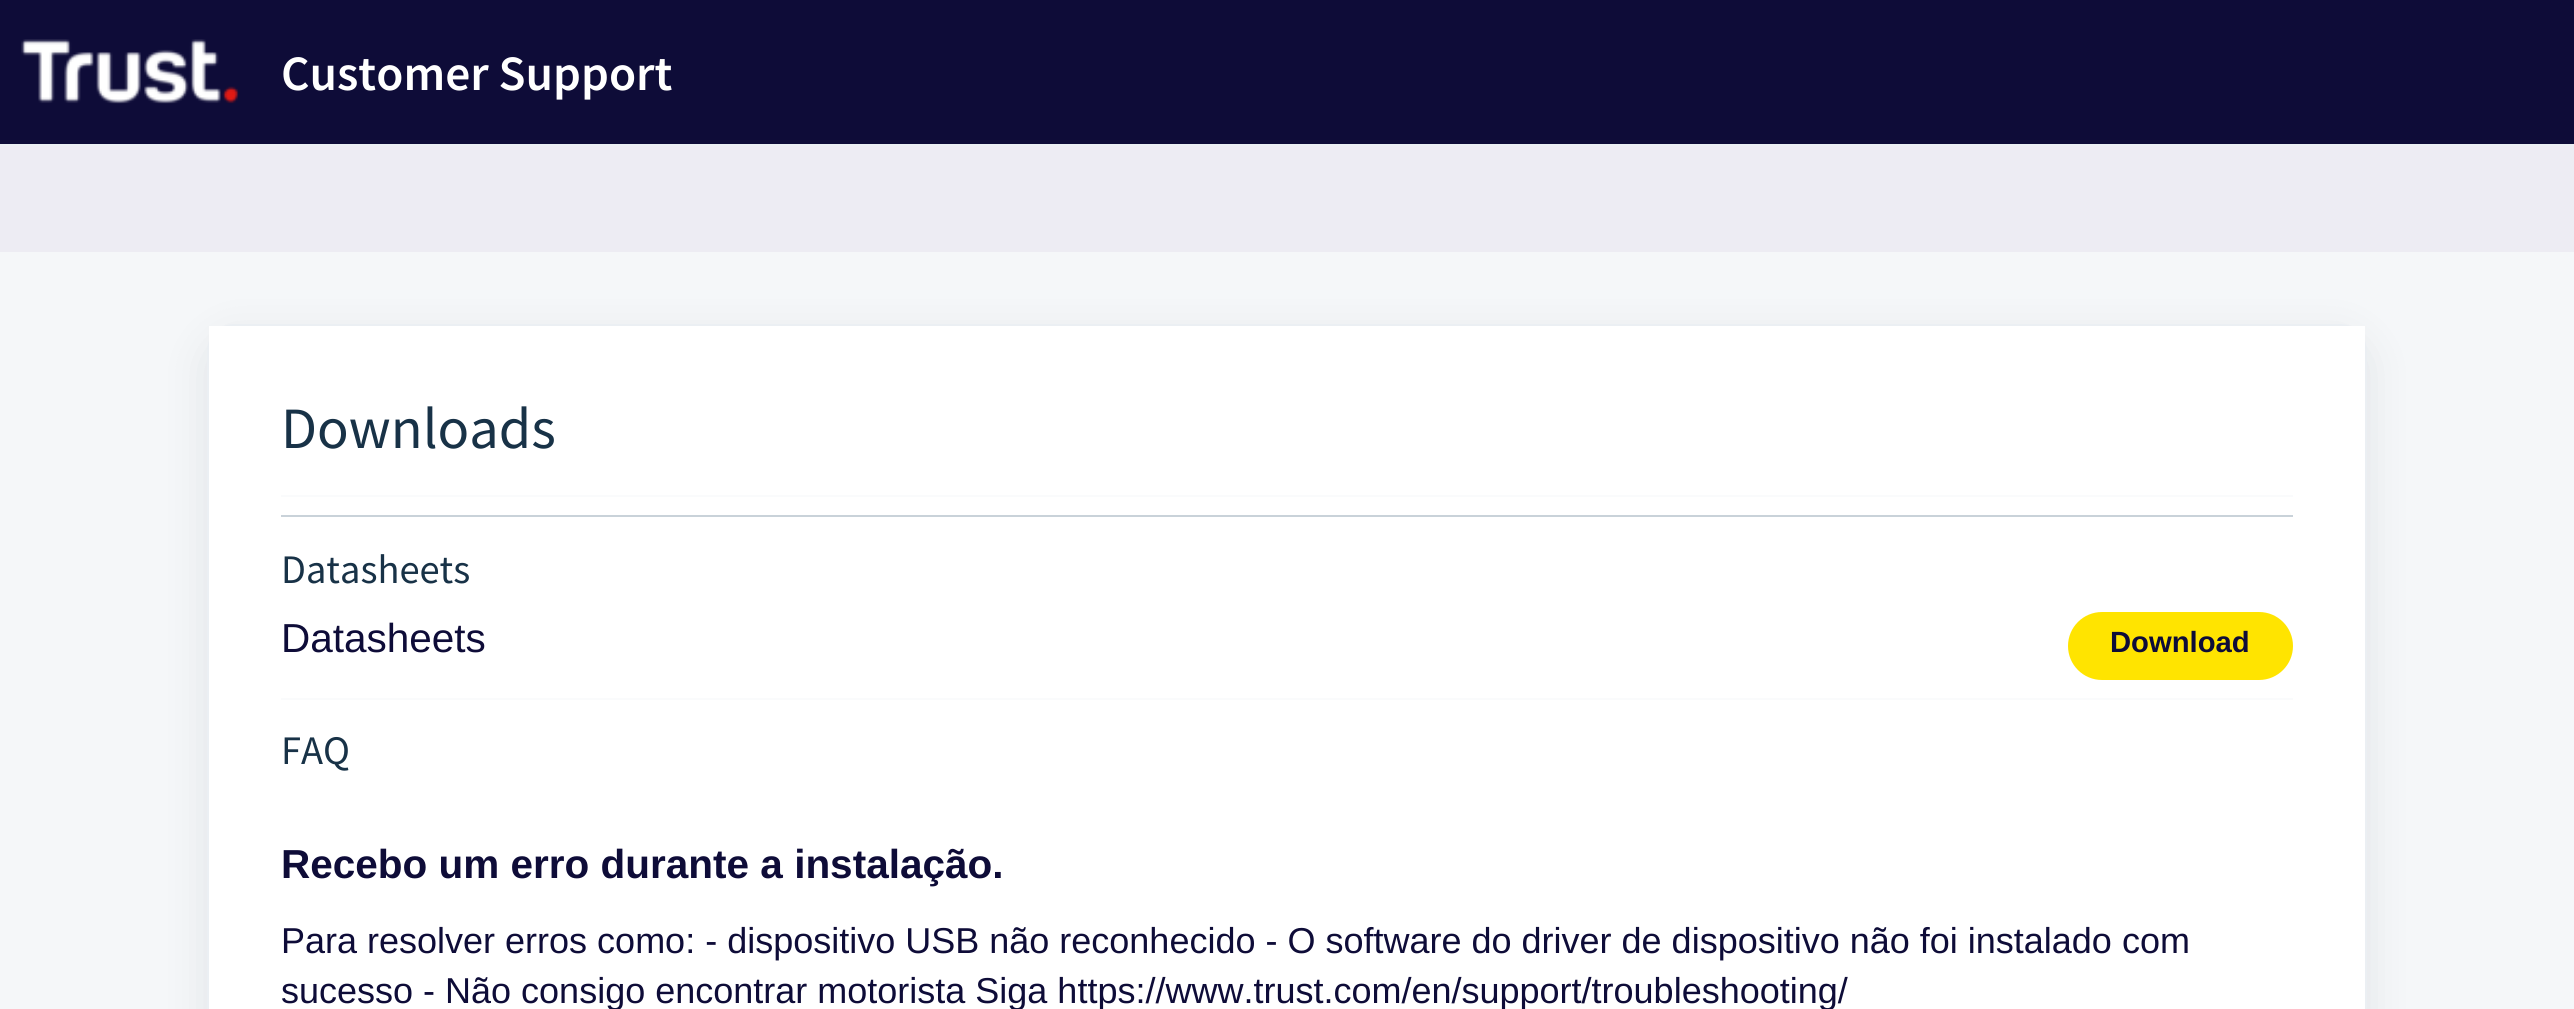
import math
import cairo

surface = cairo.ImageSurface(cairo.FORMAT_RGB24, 2574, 1009)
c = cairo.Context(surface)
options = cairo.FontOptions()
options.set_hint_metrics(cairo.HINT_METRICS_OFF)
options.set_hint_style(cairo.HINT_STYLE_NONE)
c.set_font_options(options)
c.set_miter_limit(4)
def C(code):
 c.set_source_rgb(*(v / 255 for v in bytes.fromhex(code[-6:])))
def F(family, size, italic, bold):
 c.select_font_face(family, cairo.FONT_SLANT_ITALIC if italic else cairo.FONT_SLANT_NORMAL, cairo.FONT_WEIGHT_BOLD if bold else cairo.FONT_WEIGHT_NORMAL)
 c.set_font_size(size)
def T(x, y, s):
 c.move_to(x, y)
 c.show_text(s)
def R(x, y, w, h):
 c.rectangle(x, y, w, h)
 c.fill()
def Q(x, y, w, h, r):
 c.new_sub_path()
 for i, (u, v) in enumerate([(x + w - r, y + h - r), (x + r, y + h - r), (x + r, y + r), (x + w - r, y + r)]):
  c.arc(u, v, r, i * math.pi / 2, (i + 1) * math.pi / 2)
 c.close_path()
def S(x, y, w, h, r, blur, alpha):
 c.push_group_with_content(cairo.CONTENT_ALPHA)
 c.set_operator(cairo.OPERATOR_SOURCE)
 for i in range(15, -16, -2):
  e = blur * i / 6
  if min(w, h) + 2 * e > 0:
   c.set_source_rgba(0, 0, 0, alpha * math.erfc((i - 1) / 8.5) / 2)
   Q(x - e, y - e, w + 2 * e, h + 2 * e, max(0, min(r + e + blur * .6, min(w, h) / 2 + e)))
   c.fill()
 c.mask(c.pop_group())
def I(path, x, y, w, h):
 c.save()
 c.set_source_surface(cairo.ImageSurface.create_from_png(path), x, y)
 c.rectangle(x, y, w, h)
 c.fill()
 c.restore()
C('f5f7f9')
c.paint()
C('0e0c38')
R(0,0,2574,144)
C('ebeff3')
R(0,144,2574,2)
I('1.png',21,39,218,65)
F('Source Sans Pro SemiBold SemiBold',49.5,0,0)
C('ffffff')
T(281,90,'Customer Support')
C('edecf3')
R(0,146,2574,106)
C('27313a')
S(207,338,2160,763,27,21.5,.1)
Q(208,325,2158,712,26)
C('ebeff3')
c.stroke()
C('ffffff')
R(209,326,2156,683)
F('Source Sans Pro',58.5,0,0)
C('183247')
T(281,448,'Downloads')
C('fafbfc')
R(281,495,2012,2)
C('c9d2d9')
R(281,515,2012,2)
F('Source Sans Pro',40.5,0,0)
C('183247')
T(281,583,'Datasheets')
F('Liberation Sans',40.5,0,0)
C('0e0c38')
T(281,652,'Datasheets')
C('ffe400')
Q(2068,612,225,68,34)
c.fill()
F('Liberation Sans',29.25,0,1)
C('0e0c38')
T(2110,652,'Download')
C('fafbfc')
R(281,698,2012,2)
F('Source Sans Pro',40.5,0,0)
C('183247')
T(281,764,'FAQ')
F('Liberation Sans',40.5,0,1)
C('0e0c38')
T(281,878,'Recebo um erro durante a instalação.')
F('Liberation Sans',36,0,0)
T(281,953,'Para resolver erros como: - dispositivo USB não reconhecido - O software do driver de dispositivo não foi instalado com')
T(281,1003,'sucesso - Não consigo encontrar motorista Siga https://www.trust.com/en/support/troubleshooting/')
surface.write_to_png('o.png')
